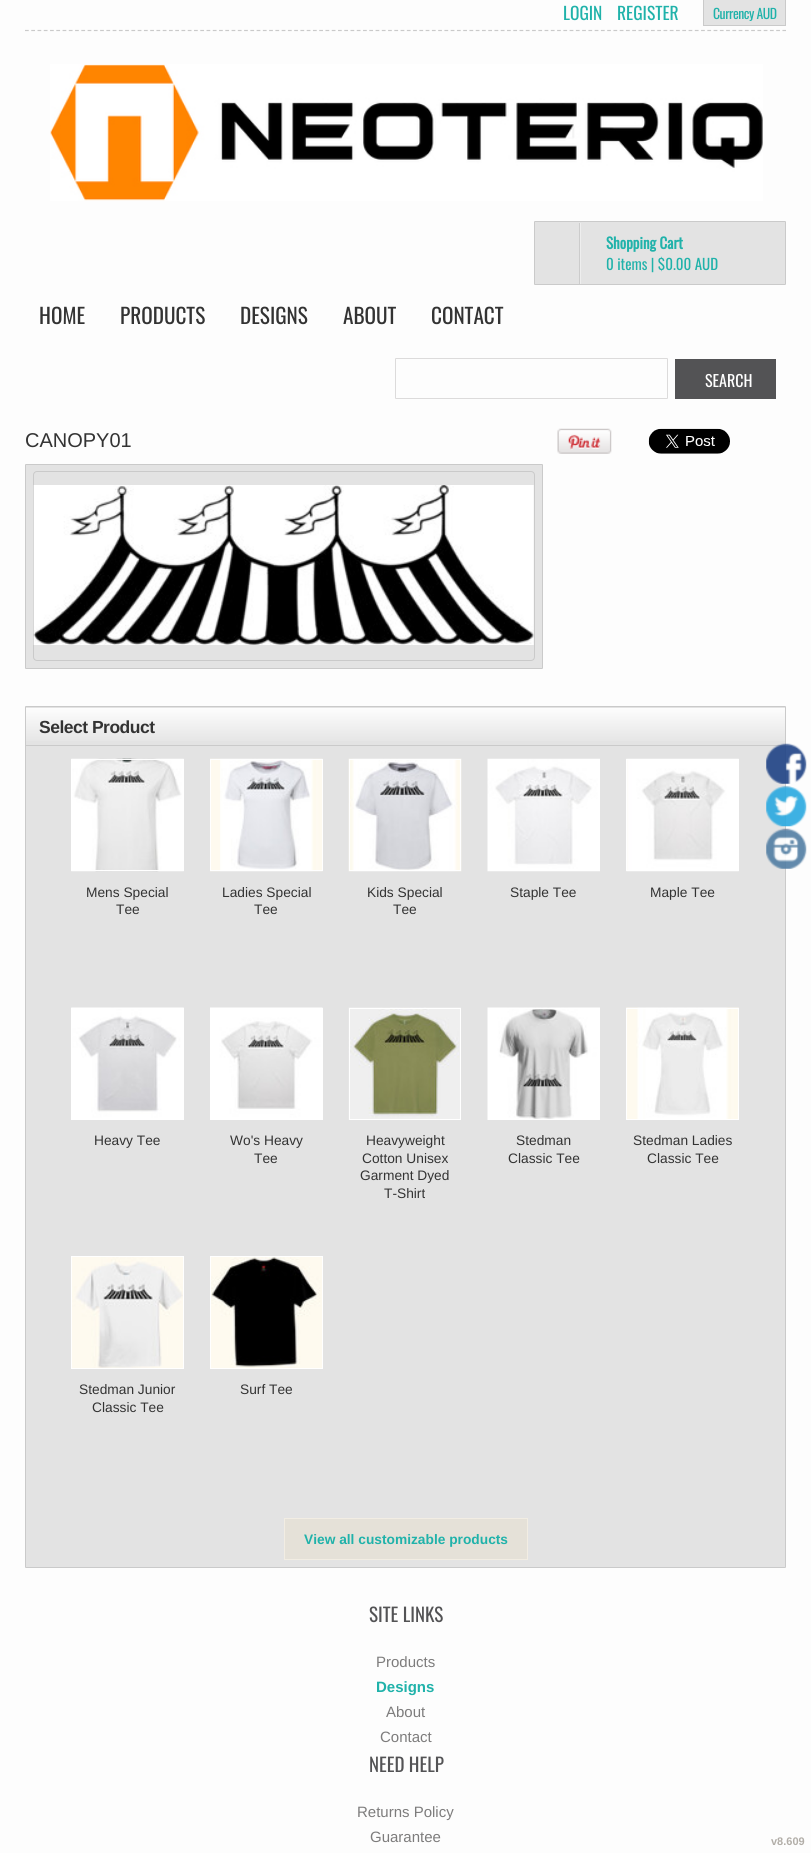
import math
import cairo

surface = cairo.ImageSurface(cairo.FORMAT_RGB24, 811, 1853)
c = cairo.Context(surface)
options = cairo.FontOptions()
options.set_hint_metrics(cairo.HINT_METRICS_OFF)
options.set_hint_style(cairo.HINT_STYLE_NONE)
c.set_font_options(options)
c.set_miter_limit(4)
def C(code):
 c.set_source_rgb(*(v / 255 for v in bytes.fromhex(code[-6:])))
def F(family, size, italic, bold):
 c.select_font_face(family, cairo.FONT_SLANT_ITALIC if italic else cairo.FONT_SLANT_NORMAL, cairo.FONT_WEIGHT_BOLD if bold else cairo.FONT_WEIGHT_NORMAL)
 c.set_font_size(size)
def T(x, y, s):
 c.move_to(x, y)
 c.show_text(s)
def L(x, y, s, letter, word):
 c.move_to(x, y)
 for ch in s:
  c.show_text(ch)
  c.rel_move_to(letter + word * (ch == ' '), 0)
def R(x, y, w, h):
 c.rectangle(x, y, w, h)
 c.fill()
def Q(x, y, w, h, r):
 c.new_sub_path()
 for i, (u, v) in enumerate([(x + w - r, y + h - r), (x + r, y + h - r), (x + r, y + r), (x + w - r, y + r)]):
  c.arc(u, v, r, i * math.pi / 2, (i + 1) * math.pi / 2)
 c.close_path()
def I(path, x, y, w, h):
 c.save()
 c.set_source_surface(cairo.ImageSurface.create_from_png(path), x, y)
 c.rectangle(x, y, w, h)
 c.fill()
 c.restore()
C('fdfdfd')
c.paint()
c.new_path()
c.move_to(25,30.5)
c.line_to(786,30.5)
C('cacaca')
c.set_line_width(1.2)
c.set_dash([3.75,2.51])
c.stroke()
F('Oswald',17.5,0,0)
C('20b2aa')
T(563,20,'LOGIN')
T(617,20,'REGISTER')
C('e3e3e3')
R(704,0,81,25)
C('cacaca')
R(785,0,1,26)
R(704,25,82,1)
R(703,0,1,26)
F('Oswald',13.75,0,0)
C('20b2aa')
L(713,19,'Currency AUD',-.5,0)
I('1.png',50,64,713,137)
C('e3e3e3')
Q(534.5,221.5,251,63,.5)
c.fill_preserve()
C('cacaca')
c.set_line_width(1)
c.set_dash([])
c.stroke()
C('cccccc')
c.new_path()
c.move_to(579,223)
c.line_to(579,284)
c.line_to(784,284)
c.line_to(580,284)
c.line_to(580,223)
c.close_path()
c.fill()
C('eeeeee')
R(580,223,1,61)
F('Oswald',15,0,1)
C('20b2aa')
T(606,249,'Shopping Cart')
F('Oswald',15,0,0)
T(606,270,'0 items | $0.00 AUD')
F('Oswald',21.25,0,0)
C('333333')
T(39,324,'HOME')
T(120,324,'PRODUCTS')
T(240,324,'DESIGNS')
T(343,324,'ABOUT')
T(431,324,'CONTACT')
Q(395.5,358.5,272,40,.5)
C('dcdbdb')
c.stroke()
C('535355')
R(675,359,101,40)
F('Oswald',16,0,0)
C('ffffff')
T(705,387,'SEARCH')
F('Liberation Sans',20,0,0)
C('333333')
T(25,447,'CANOPY01')
I('2.png',557,428,55,26)
I('3.png',648,428,82,26)
C('e3e3e3')
Q(25.5,464.5,517,204,.5)
c.fill_preserve()
C('cacaca')
c.stroke()
Q(33.5,471.5,501,189,3.5)
c.stroke()
I('4.png',33,485,501,160)
C('e3e3e3')
Q(25.5,706.5,760,861,.5)
c.fill_preserve()
C('cacaca')
c.stroke()
gradient = cairo.LinearGradient(406,708,406,745)
gradient.add_color_stop_rgba(0,0.992,0.992,0.992,1)
gradient.add_color_stop_rgba(1,0.89,0.89,0.89,1)
c.set_source(gradient)
R(26,708,759,33)
C('cacaca')
R(26,745,759,1)
F('Liberation Sans',17.5,0,1)
C('333333')
L(39,733,'Select Product',-.5,0)
I('5.png',71,758,113,114)
c.rectangle(71.5,759.5,112,111)
C('ffffff')
c.stroke()
F('Liberation Sans',13.75,0,0)
C('333333')
T(86,897,'Mens Special')
T(116,914,'Tee')
I('6.png',210,758,113,114)
c.rectangle(210.5,759.5,112,111)
C('ffffff')
c.stroke()
C('333333')
T(222,897,'Ladies Special')
T(254,914,'Tee')
I('7.png',348,758,114,114)
c.rectangle(349.5,759.5,111,111)
C('ffffff')
c.stroke()
C('333333')
T(367,897,'Kids Special')
T(393,914,'Tee')
I('8.png',487,758,113,114)
T(510,897,'Staple Tee')
I('9.png',626,758,113,114)
c.rectangle(626.5,759.5,112,111)
C('ffffff')
c.stroke()
C('333333')
T(650,897,'Maple Tee')
I('10.png',71,1007,113,112)
c.rectangle(71.5,1008.5,112,111)
C('ffffff')
c.stroke()
C('333333')
T(94,1145,'Heavy Tee')
I('11.png',210,1007,113,112)
c.rectangle(210.5,1008.5,112,111)
C('ffffff')
c.stroke()
C('333333')
T(230,1145,'Wo\'s Heavy')
T(254,1163,'Tee')
I('12.png',348,1007,113,113)
c.rectangle(349.5,1008.5,111,111)
C('ffffff')
c.stroke()
C('333333')
T(366,1145,'Heavyweight')
T(362,1163,'Cotton Unisex')
T(360,1180,'Garment Dyed')
T(384,1198,'T-Shirt')
I('13.png',487,1007,113,113)
c.rectangle(488.5,1008.5,111,111)
C('ffffff')
c.stroke()
C('333333')
T(516,1145,'Stedman')
T(508,1163,'Classic Tee')
I('14.png',626,1007,113,112)
c.rectangle(626.5,1008.5,112,111)
C('ffffff')
c.stroke()
C('333333')
T(633,1145,'Stedman Ladies')
T(647,1163,'Classic Tee')
I('15.png',72,1257,111,111)
c.rectangle(71.5,1256.5,112,112)
C('ffffff')
c.stroke()
C('333333')
T(79,1394,'Stedman Junior')
T(92,1412,'Classic Tee')
I('16.png',211,1257,111,111)
c.rectangle(210.5,1256.5,112,112)
C('ffffff')
c.stroke()
C('333333')
T(240,1394,'Surf Tee')
C('e5e1d8')
c.rectangle(284.5,1518.5,243,41)
c.fill_preserve()
C('f2ede3')
c.stroke()
F('Liberation Sans',13.75,0,1)
C('20b2aa')
T(304,1544,'View all customizable products')
F('Oswald',19,0,0)
C('535355')
T(369,1622,'SITE LINKS')
F('Liberation Sans',15,0,0)
C('7d7c7c')
T(376,1667,'Products')
F('Liberation Sans',15,0,1)
C('20b2aa')
T(376,1692,'Designs')
F('Liberation Sans',15,0,0)
C('7d7c7c')
T(386,1717,'About')
T(380,1742,'Contact')
F('Oswald',19,0,0)
C('535355')
T(369,1772,'NEED HELP')
F('Liberation Sans',15,0,0)
C('7d7c7c')
T(357,1817,'Returns Policy')
T(370,1842,'Guarantee')
F('Liberation Sans',11,0,1)
C('b2aea8')
T(771,1845,'v8.609')
I('17.png',766,743,41,41)
I('18.png',766,786,41,41)
I('19.png',766,828,41,41)
surface.write_to_png('o.png')
